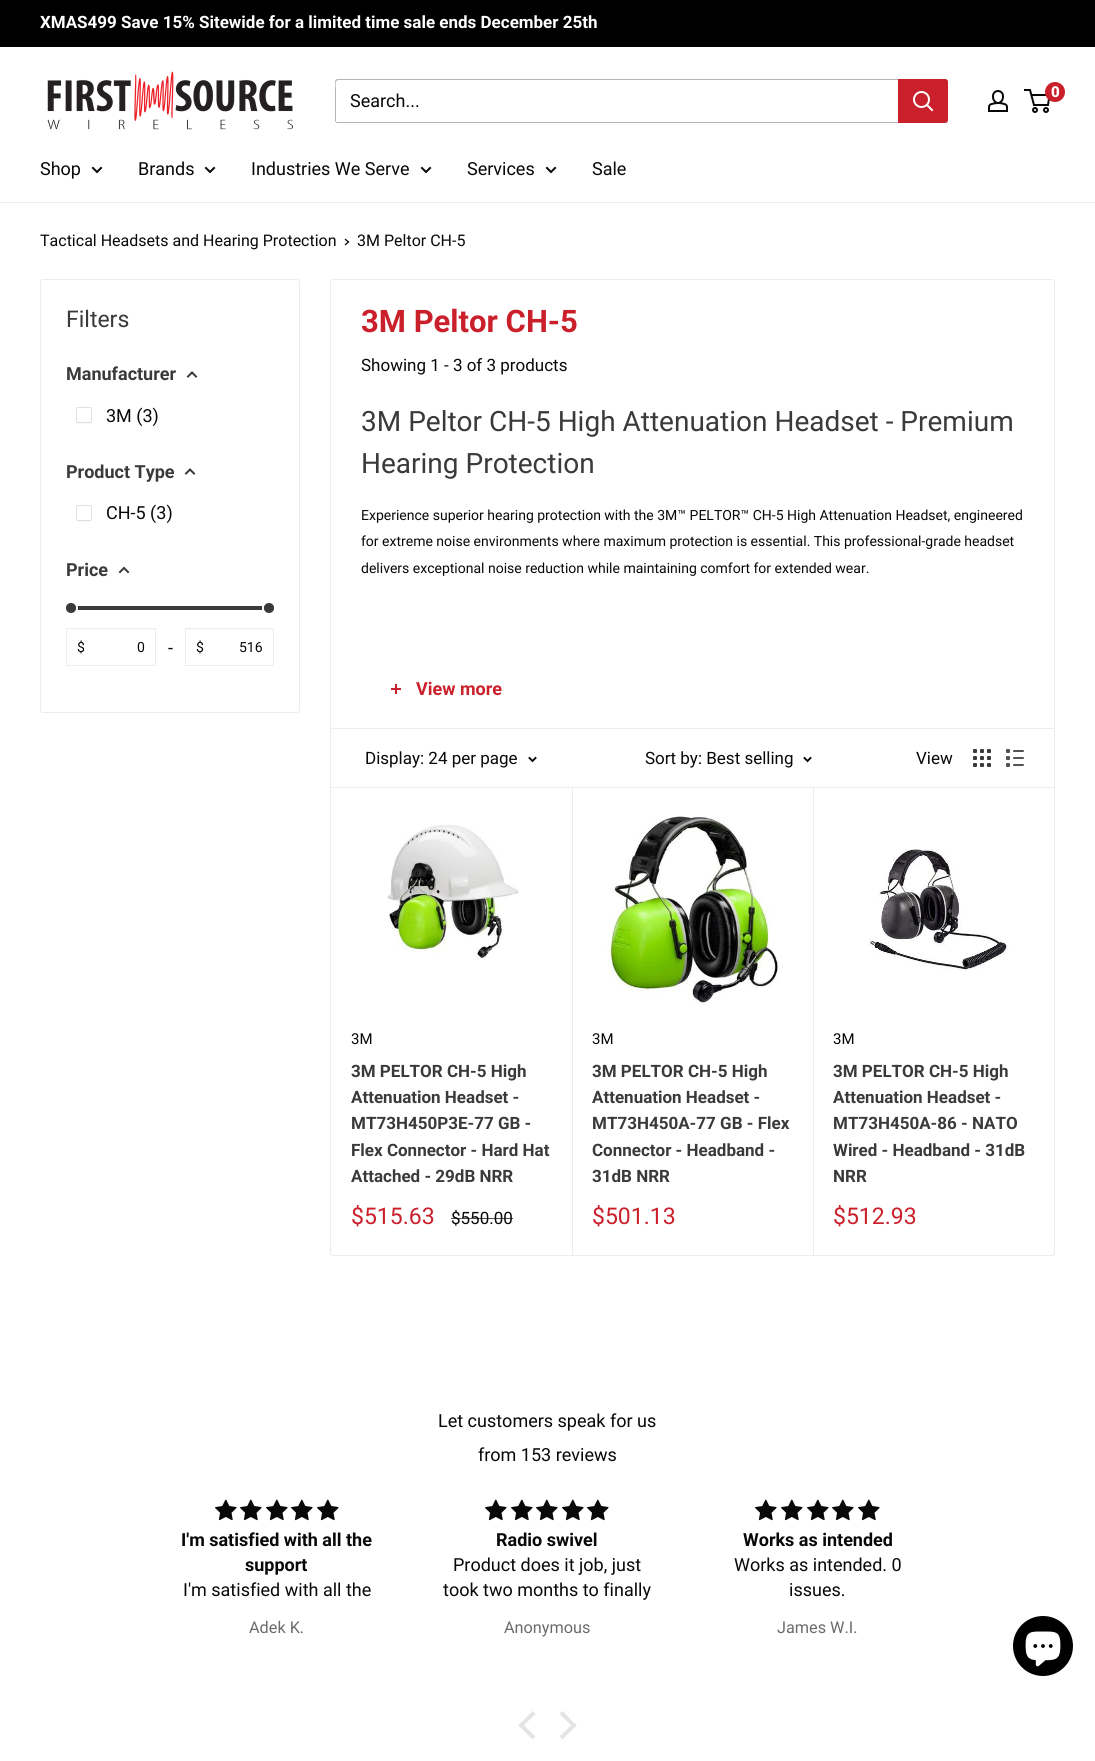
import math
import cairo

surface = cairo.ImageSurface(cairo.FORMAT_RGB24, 1095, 1761)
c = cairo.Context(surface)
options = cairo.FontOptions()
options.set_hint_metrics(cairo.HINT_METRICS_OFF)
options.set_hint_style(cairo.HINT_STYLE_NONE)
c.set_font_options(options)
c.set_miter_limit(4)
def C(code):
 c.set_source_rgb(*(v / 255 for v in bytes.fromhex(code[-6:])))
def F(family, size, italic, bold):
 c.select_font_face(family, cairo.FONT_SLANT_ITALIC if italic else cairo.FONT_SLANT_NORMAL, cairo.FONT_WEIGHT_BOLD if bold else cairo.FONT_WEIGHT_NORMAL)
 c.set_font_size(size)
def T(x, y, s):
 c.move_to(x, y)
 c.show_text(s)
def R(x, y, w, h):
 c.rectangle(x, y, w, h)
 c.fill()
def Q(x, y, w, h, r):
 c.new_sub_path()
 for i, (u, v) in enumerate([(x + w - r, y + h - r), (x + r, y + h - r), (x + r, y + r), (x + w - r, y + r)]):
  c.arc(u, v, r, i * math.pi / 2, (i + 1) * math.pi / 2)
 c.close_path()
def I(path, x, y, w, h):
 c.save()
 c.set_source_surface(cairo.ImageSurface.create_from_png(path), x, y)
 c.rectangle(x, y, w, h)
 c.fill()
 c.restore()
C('ffffff')
c.paint()
C('000000')
R(0,0,1095,46)
C('020202')
R(0,46,1095,1)
F('Roboto',17,0,1)
C('ffffff')
T(40,28,'XMAS499 Save 15% Sitewide for a limited time sale ends December 25th')
I('1.png',47,71,247,59)
C('b5b5b5')
c.new_path()
c.move_to(336,122)
c.curve_to(336,123,337,123,338,123)
c.line_to(945,123)
c.curve_to(947,123,948,122,948,120)
c.line_to(948,82)
c.curve_to(948,81,948,80,947,80)
c.line_to(947,113)
c.curve_to(947,115,949,122,944,122)
c.close_path()
c.fill()
c.new_path()
c.move_to(339,80)
c.line_to(947,80)
c.curve_to(947,79,946,79,945,79)
c.line_to(338,79)
c.curve_to(336,79,335,80,335,82)
c.line_to(335,120)
c.curve_to(335,121,335,122,336,122)
c.line_to(336,89)
c.curve_to(336,87,334,80,339,80)
c.close_path()
c.fill()
F('Roboto',18,0,0)
C('080808')
T(350,107,'Search...')
C('ca202b')
c.new_path()
c.move_to(898,79)
c.line_to(945,79)
c.curve_to(946.5,79,948,80.5,948,82)
c.line_to(948,120)
c.curve_to(948,121.5,946.5,123,945,123)
c.line_to(898,123)
c.close_path()
c.fill()
c.new_path()
c.move_to(932,110)
c.line_to(927,105)
C('ffffff')
c.set_line_cap(cairo.LINE_CAP_SQUARE)
c.stroke()
c.arc(921.5,99.5,7.5,0,2 * math.pi)
c.set_line_cap(cairo.LINE_CAP_BUTT)
c.stroke()
I('2.png',988,90,20,22)
c.arc(1035,110,2,0,2 * math.pi)
C('080808')
c.stroke()
c.arc(1046,110,2,0,2 * math.pi)
c.stroke()
c.new_path()
c.move_to(1031.5,95)
c.line_to(1049.5,95)
c.line_to(1048,105)
c.line_to(1034,105)
c.line_to(1030,90)
c.line_to(1024,90)
c.stroke()
C('ca202b')
c.arc(1055,92,10,0,2 * math.pi)
c.fill()
F('Roboto Black',15,0,0)
C('ffffff')
T(1051,97,'0')
C('ededed')
R(0,202,1095,1)
F('Roboto',18,0,0)
C('080808')
T(40,175,'Shop')
c.new_path()
c.move_to(101,168)
c.line_to(97,172)
c.line_to(93,168)
c.set_line_cap(cairo.LINE_CAP_SQUARE)
c.stroke()
T(138,175,'Brands')
c.new_path()
c.move_to(214,168)
c.line_to(210,172)
c.line_to(206,168)
c.stroke()
T(251,175,'Industries We Serve')
c.new_path()
c.move_to(430,168)
c.line_to(426,172)
c.line_to(422,168)
c.stroke()
T(467,175,'Services')
c.new_path()
c.move_to(555,168)
c.line_to(551,172)
c.line_to(547,168)
c.stroke()
T(592,175,'Sale')
F('Roboto',16,0,0)
T(40,246,'Tactical Headsets and Hearing Protection')
c.new_path()
c.move_to(345.5,239.5)
c.line_to(348.5,242)
c.line_to(345.5,244.5)
c.set_line_width(1.3)
c.stroke()
T(357,246,'3M Peltor CH-5')
Q(40.5,279.5,259,433,2.5)
C('ededed')
c.set_line_width(1)
c.set_line_cap(cairo.LINE_CAP_BUTT)
c.stroke()
F('Roboto',23,0,0)
C('3a3a3a')
T(66,327,'Filters')
F('Roboto',18,0,1)
T(66,380,'Manufacturer')
c.new_path()
c.move_to(188,376.5)
c.line_to(192,372.5)
c.line_to(196,376.5)
c.set_line_width(2)
c.set_line_cap(cairo.LINE_CAP_SQUARE)
c.stroke()
C('f8f8f8')
c.new_path()
c.move_to(76,421)
c.curve_to(76,424,77,424,80,424)
c.line_to(88,424)
c.curve_to(91,424,92,424,92,421)
c.curve_to(92,422,91,423,90,423)
c.line_to(78,423)
c.curve_to(77,423,76,422,76,421)
c.close_path()
c.fill()
Q(76.5,407.5,15,15,1.5)
C('e0e0e0')
c.set_line_width(1)
c.set_line_cap(cairo.LINE_CAP_BUTT)
c.stroke()
F('Roboto',18,0,0)
C('080808')
T(106,422,'3M (3)')
F('Roboto',18,0,1)
C('3a3a3a')
T(66,478,'Product Type')
c.new_path()
c.move_to(186,473.5)
c.line_to(190,469.5)
c.line_to(194,473.5)
c.set_line_width(2)
c.set_line_cap(cairo.LINE_CAP_SQUARE)
c.stroke()
C('f8f8f8')
c.new_path()
c.move_to(76,519)
c.curve_to(76,522,77,522,80,522)
c.line_to(88,522)
c.curve_to(91,522,92,522,92,519)
c.curve_to(92,520,91,521,90,521)
c.line_to(78,521)
c.curve_to(77,521,76,520,76,519)
c.close_path()
c.fill()
Q(76.5,505.5,15,15,1.5)
C('e0e0e0')
c.set_line_width(1)
c.set_line_cap(cairo.LINE_CAP_BUTT)
c.stroke()
F('Roboto',18,0,0)
C('080808')
T(106,519,'CH-5 (3)')
F('Roboto',18,0,1)
C('3a3a3a')
T(66,576,'Price')
c.new_path()
c.move_to(120,572)
c.line_to(124,568)
c.line_to(128,572)
c.set_line_width(2)
c.set_line_cap(cairo.LINE_CAP_SQUARE)
c.stroke()
Q(66,606,208,4,2)
c.fill()
c.arc(71,608,6,0,2 * math.pi)
C('ffffff')
c.set_line_cap(cairo.LINE_CAP_BUTT)
c.stroke()
C('3a3a3a')
c.arc(71,608,5,0,2 * math.pi)
c.fill()
c.arc(269,608,6,0,2 * math.pi)
C('ffffff')
c.stroke()
C('3a3a3a')
c.arc(269,608,5,0,2 * math.pi)
c.fill()
C('fbfbfb')
R(67,629,88,1)
c.rectangle(66.5,628.5,89,37)
C('ededed')
c.set_line_width(1)
c.stroke()
F('Roboto',14,0,0)
C('080808')
T(77,652,'$')
T(137,652,'0')
F('Roboto',18,0,0)
T(168,654,'-')
C('fbfbfb')
R(186,629,87,1)
c.rectangle(185.5,628.5,88,37)
C('ededed')
c.stroke()
F('Roboto',14,0,0)
C('080808')
T(196,652,'$')
T(239,652,'516')
Q(330.5,279.5,724,976,2.5)
C('ededed')
c.stroke()
F('Roboto',31,0,1)
C('ca202b')
T(361,332,'3M Peltor CH-5')
F('Roboto',17,0,0)
C('080808')
T(361,371,'Showing 1 - 3 of 3 products')
F('Roboto',28,0,0)
C('3a3a3a')
T(361,431,'3M Peltor CH-5 High Attenuation Headset - Premium')
T(361,473,'Hearing Protection')
F('Roboto',14,0,0)
C('080808')
T(361,520,'Experience superior hearing protection with the 3M™ PELTOR™ CH-5 High Attenuation Headset, engineered')
T(361,546,'for extreme noise environments where maximum protection is essential. This professional-grade headset')
T(361,573,'delivers exceptional noise reduction while maintaining comfort for extended wear.')
C('ca202b')
R(395,684,2,10)
R(391,688,10,2)
F('Roboto',18,0,1)
T(416,695,'View more')
C('ededed')
R(331,728,723,1)
R(572,787,1,468)
R(813,787,1,468)
R(331,787,723,1)
F('Roboto',17,0,0)
C('080808')
T(365,764,'Display: 24 per page')
c.new_path()
c.move_to(535.5,758)
c.line_to(532.5,761)
c.line_to(529.5,758)
c.set_line_width(1.9)
c.set_line_cap(cairo.LINE_CAP_SQUARE)
c.stroke()
T(645,764,'Sort by: Best selling')
c.new_path()
c.move_to(810.5,758)
c.line_to(807.5,761)
c.line_to(804.5,758)
c.stroke()
T(916,764,'View')
I('3.png',973,749,18,18)
I('4.png',1006,749,18,18)
I('5.png',387,825,133,135)
F('Roboto',15,0,0)
T(351,1044,'3M')
F('Roboto',17,0,1)
C('3a3a3a')
T(351,1077,'3M PELTOR CH-5 High')
T(351,1103,'Attenuation Headset -')
T(351,1129,'MT73H450P3E-77 GB -')
T(351,1156,'Flex Connector - Hard Hat')
T(351,1182,'Attached - 29dB NRR')
F('Roboto',23,0,0)
C('ca202b')
T(351,1224,'$515.63')
F('Roboto',17,0,0)
C('080808')
T(451,1224,'$550.00')
c.set_source_rgba(0.031,0.031,0.031,0.7)
R(451,1218,62,1)
I('6.png',607,816,172,188)
F('Roboto',15,0,0)
C('080808')
T(592,1044,'3M')
F('Roboto',17,0,1)
C('3a3a3a')
T(592,1077,'3M PELTOR CH-5 High')
T(592,1103,'Attenuation Headset -')
T(592,1129,'MT73H450A-77 GB - Flex')
T(592,1156,'Connector - Headband -')
T(592,1182,'31dB NRR')
F('Roboto',23,0,0)
C('ca202b')
T(592,1224,'$501.13')
I('7.png',869,849,140,121)
F('Roboto',15,0,0)
C('080808')
T(833,1044,'3M')
F('Roboto',17,0,1)
C('3a3a3a')
T(833,1077,'3M PELTOR CH-5 High')
T(833,1103,'Attenuation Headset -')
T(833,1129,'MT73H450A-86 - NATO')
T(833,1156,'Wired - Headband - 31dB')
T(833,1182,'NRR')
F('Roboto',23,0,0)
C('ca202b')
T(833,1224,'$512.93')
F('Roboto',18,0,0)
C('080808')
T(438,1427,'Let customers speak for us')
T(478,1461,'from 153 reviews')
I('8.png',215,1499,22,22)
I('8.png',240,1499,22,22)
I('8.png',266,1499,22,22)
I('8.png',291,1499,22,22)
I('8.png',317,1499,22,22)
F('Roboto',18,0,1)
T(181,1546,'I\'m satisfied with all the')
T(245,1571,'support')
F('Roboto',18,0,0)
T(183,1596,'I\'m satisfied with all the')
F('Roboto',16.25,0,0)
C('6b6b6b')
T(249,1633,'Adek K.')
I('8.png',485,1499,22,22)
I('8.png',511,1499,22,22)
I('8.png',536,1499,22,22)
I('8.png',562,1499,22,22)
I('8.png',587,1499,22,22)
F('Roboto',18,0,1)
C('080808')
T(496,1546,'Radio swivel')
F('Roboto',18,0,0)
T(453,1571,'Product does it job, just')
T(443,1596,'took two months to finally')
F('Roboto',16.25,0,0)
C('6b6b6b')
T(504,1633,'Anonymous')
I('8.png',755,1499,22,22)
I('8.png',781,1499,22,22)
I('8.png',807,1499,22,22)
I('8.png',832,1499,22,22)
I('8.png',858,1499,22,22)
F('Roboto',18,0,1)
C('080808')
T(743,1546,'Works as intended')
F('Roboto',18,0,0)
T(734,1571,'Works as intended. 0')
T(789,1596,'issues.')
F('Roboto',16.25,0,0)
C('6b6b6b')
T(777,1633,'James W.I.')
C('e4e4e4')
c.new_path()
c.move_to(518.5,1725.5)
c.line_to(532.5,1711)
c.line_to(535.5,1714)
c.line_to(521,1728)
c.close_path()
c.fill()
c.new_path()
c.move_to(518.5,1725.5)
c.line_to(521,1722.5)
c.line_to(535.5,1736.5)
c.line_to(532.5,1739.5)
c.close_path()
c.move_to(559.5,1714)
c.line_to(562.5,1711)
c.line_to(576.5,1725.5)
c.line_to(574,1728)
c.close_path()
c.fill()
c.new_path()
c.move_to(559.5,1736.5)
c.line_to(574,1722.5)
c.line_to(576.5,1725.5)
c.line_to(562.5,1739.5)
c.close_path()
c.fill()
C('000000')
c.arc(1043,1646,30,0,2 * math.pi)
c.fill()
I('9.png',1025,1631,36,36)
surface.write_to_png('o.png')
